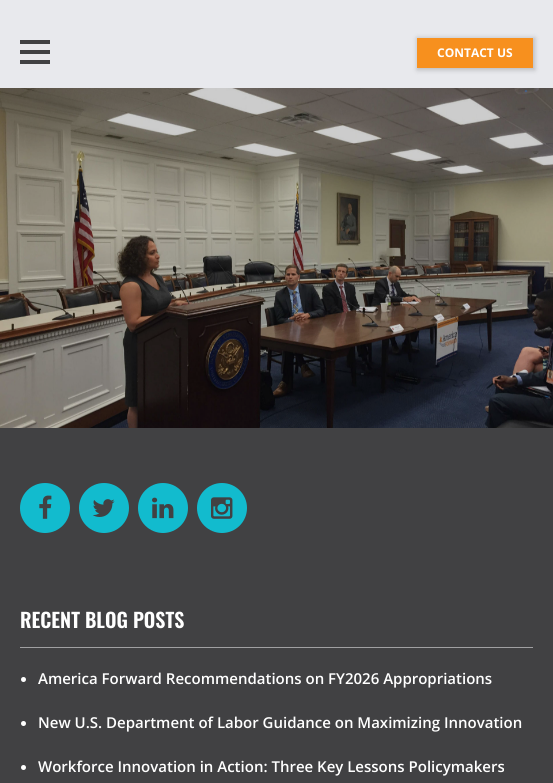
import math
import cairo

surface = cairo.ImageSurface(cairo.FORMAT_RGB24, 553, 783)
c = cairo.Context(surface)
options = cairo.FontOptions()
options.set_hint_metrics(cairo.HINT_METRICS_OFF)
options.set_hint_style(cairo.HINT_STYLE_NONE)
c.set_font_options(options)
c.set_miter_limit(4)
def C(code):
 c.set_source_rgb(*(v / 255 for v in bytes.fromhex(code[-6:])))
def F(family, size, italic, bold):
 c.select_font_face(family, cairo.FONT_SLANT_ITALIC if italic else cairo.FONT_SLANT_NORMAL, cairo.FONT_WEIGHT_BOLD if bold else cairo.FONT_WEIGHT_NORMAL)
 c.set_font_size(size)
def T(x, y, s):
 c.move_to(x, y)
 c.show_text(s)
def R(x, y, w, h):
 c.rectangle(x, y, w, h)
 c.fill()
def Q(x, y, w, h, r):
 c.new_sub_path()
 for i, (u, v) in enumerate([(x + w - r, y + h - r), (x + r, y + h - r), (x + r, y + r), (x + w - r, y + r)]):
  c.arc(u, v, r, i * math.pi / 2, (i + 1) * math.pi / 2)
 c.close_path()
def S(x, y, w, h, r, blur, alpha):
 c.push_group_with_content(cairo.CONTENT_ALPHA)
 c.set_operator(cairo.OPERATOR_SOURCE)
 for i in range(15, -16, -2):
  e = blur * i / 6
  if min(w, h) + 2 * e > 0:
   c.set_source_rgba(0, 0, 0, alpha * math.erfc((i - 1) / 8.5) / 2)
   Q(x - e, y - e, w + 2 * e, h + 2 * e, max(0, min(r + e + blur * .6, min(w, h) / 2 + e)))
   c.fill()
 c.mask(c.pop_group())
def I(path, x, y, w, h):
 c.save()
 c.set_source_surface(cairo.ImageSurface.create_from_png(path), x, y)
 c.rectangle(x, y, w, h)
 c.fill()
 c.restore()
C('e8e9ed')
c.paint()
C('414143')
R(20,40,30,4)
R(20,50,30,4)
R(20,60,30,4)
C('000000')
S(417,38,118,32,0,2.5,.2)
C('f7901e')
R(417,38,116,30)
F('Open Sans',12,0,1)
C('ffffff')
T(437,57,'CONTACT US')
I('1.png',0,88,553,340)
C('414143')
R(0,428,553,355)
C('12bbce')
c.arc(45,508,25,0,2 * math.pi)
c.fill()
I('2.png',39,495,13,24)
c.arc(104,508,25,0,2 * math.pi)
c.fill()
I('3.png',92,499,23,18)
c.arc(163,508,25,0,2 * math.pi)
c.fill()
I('4.png',152,497,22,22)
c.arc(222,508,25,0,2 * math.pi)
c.fill()
I('5.png',211,497,22,22)
C('a0a0a2')
R(20,647,513,1)
F('Oswald SemiBold',20,0,0)
C('ffffff')
T(20,628,'RECENT BLOG POSTS')
c.new_path()
c.arc(23.5,679.5,2.5,0,2 * math.pi)
c.fill()
F('Open Sans SemiBold',15,0,0)
T(38,684,'America Forward Recommendations on FY2026 Appropriations')
c.new_path()
c.arc(23.5,723.5,2.5,0,2 * math.pi)
c.fill()
T(38,728,'New U.S. Department of Labor Guidance on Maximizing Innovation')
c.new_path()
c.arc(23.5,767.5,2.5,0,2 * math.pi)
c.fill()
T(38,772,'Workforce Innovation in Action: Three Key Lessons Policymakers')
surface.write_to_png('o.png')
